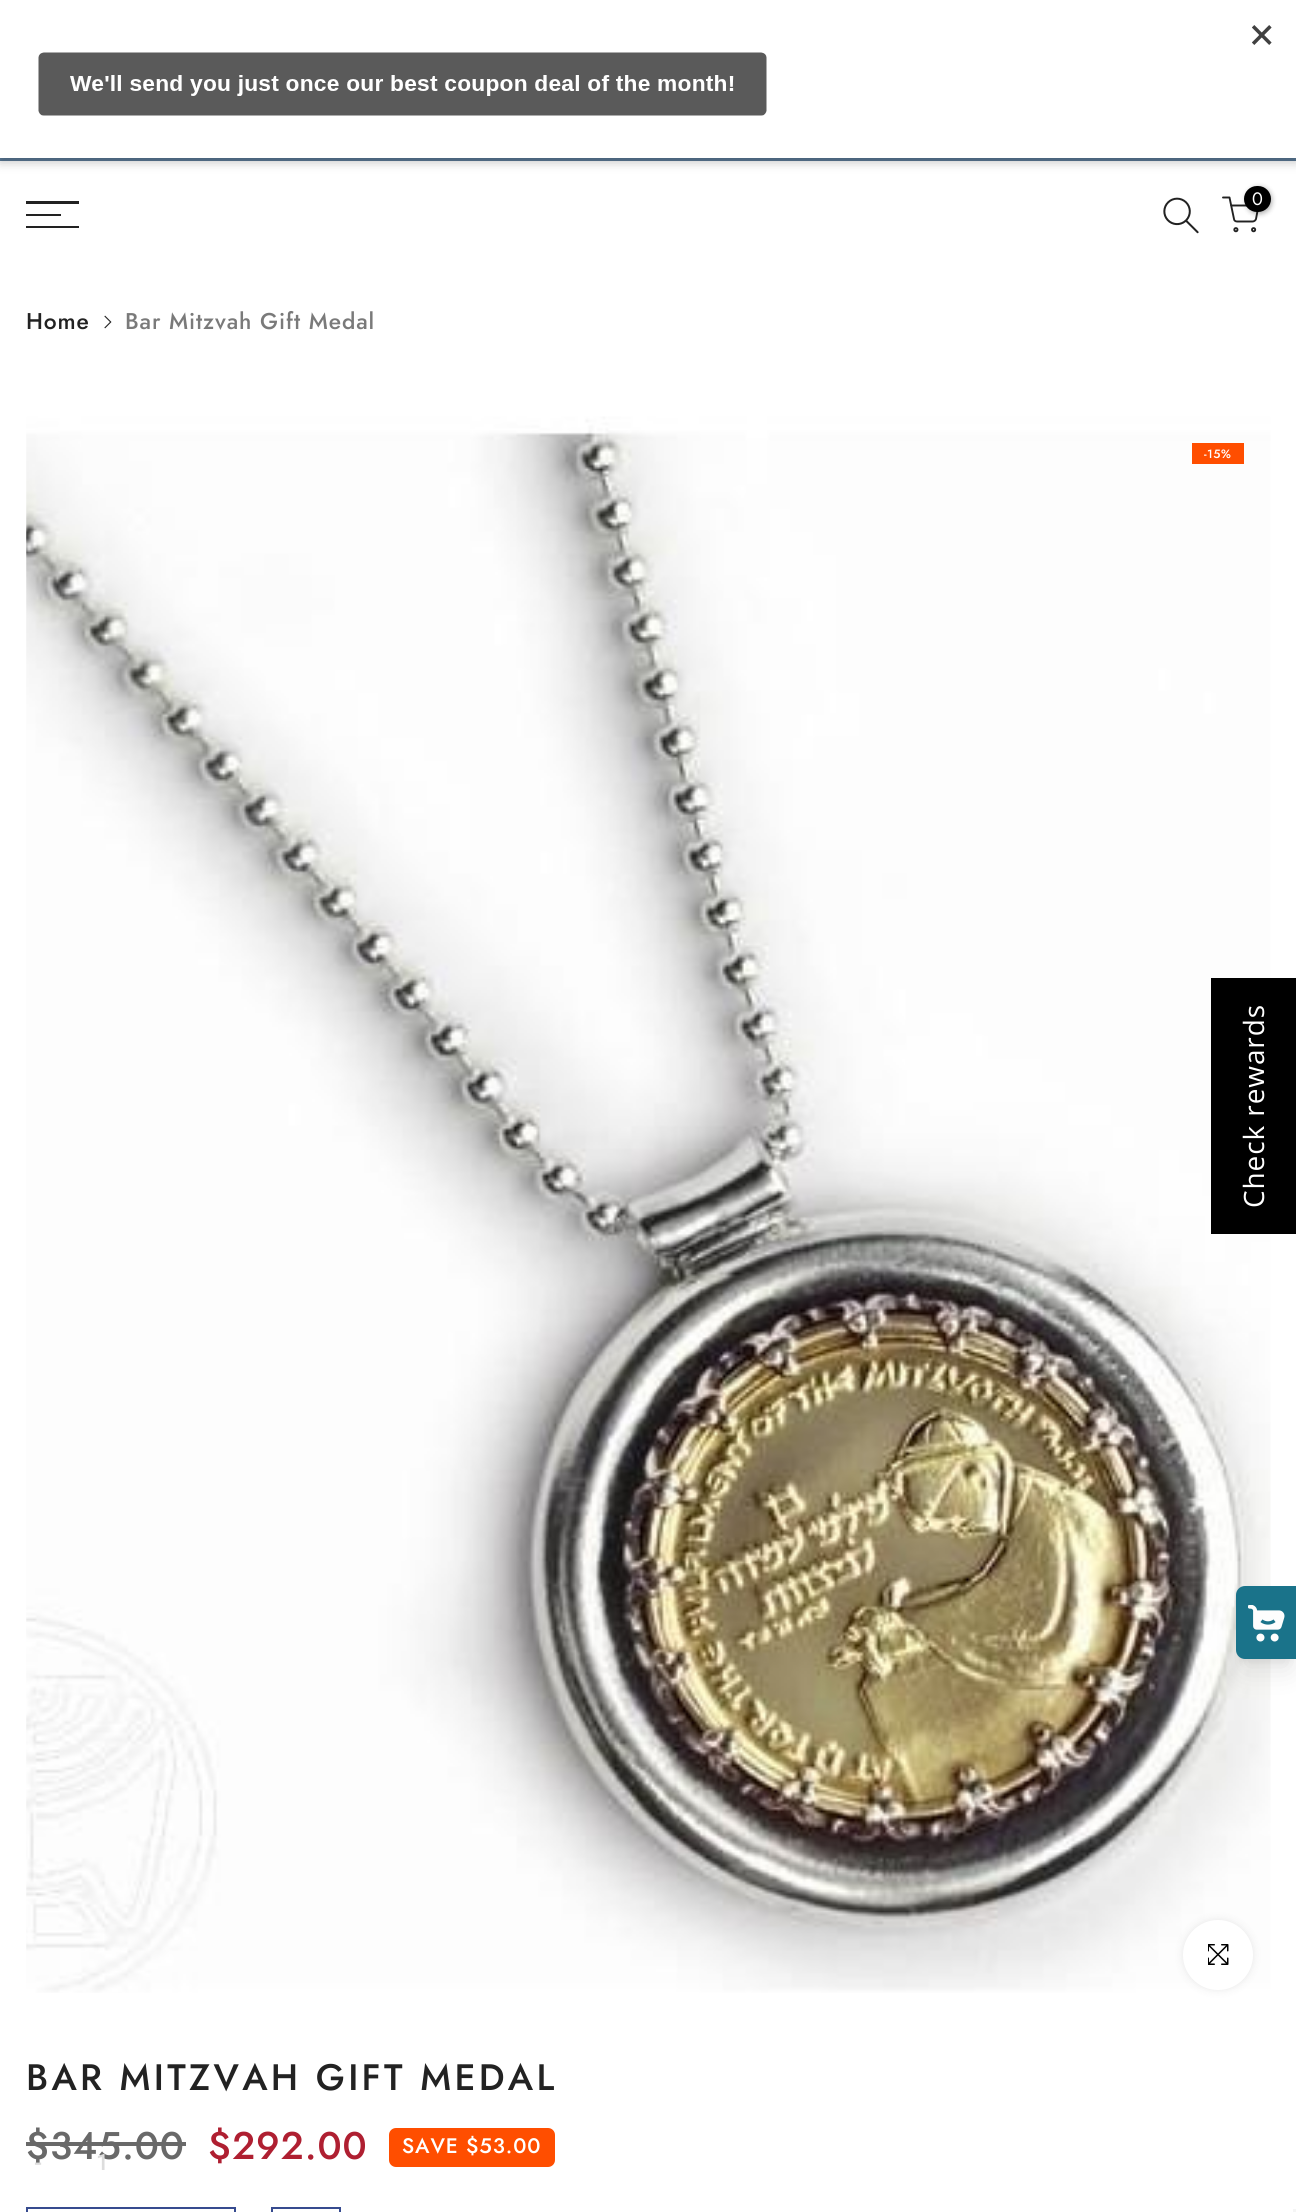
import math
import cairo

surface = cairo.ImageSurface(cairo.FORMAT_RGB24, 1296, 2212)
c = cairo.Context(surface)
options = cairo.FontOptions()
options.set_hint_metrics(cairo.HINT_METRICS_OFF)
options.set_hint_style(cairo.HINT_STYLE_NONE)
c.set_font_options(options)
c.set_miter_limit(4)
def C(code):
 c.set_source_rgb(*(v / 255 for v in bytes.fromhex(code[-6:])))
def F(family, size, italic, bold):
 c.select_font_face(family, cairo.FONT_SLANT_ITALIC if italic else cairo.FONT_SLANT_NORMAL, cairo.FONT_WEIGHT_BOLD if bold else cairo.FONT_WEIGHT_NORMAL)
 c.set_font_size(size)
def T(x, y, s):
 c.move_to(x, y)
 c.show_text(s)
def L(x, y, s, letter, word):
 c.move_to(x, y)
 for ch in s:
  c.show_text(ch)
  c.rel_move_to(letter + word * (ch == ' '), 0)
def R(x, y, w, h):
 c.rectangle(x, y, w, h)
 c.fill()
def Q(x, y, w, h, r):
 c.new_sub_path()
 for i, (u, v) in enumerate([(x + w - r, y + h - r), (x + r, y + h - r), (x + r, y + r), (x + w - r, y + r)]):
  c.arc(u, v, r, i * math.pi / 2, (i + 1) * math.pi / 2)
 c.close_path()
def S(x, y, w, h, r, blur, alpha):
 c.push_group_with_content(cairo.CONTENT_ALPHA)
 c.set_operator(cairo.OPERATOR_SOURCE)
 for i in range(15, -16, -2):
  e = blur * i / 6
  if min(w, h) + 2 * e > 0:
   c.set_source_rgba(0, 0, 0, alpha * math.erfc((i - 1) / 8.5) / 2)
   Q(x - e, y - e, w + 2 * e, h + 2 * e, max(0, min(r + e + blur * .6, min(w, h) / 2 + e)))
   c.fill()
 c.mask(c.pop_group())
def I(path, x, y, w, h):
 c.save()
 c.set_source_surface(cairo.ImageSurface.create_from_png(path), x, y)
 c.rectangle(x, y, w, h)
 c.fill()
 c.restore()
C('ffffff')
c.paint()
C('5a7996')
R(0,158,1296,3)
C('000000')
S(0,5,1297,158,0,5,.2)
C('ffffff')
R(0,0,1296,158)
I('1.png',38,25,1234,91)
I('2.png',1163,197,36,37)
c.new_path()
c.move_to(1223,197.5)
c.line_to(1229.5,197.5)
c.line_to(1234,219)
c.curve_to(1234,220.5,1235.5,221.5,1237,221.5)
c.line_to(1252.5,221.5)
c.curve_to(1254,221.5,1255.5,220.5,1256,219)
c.line_to(1258.5,205.5)
c.line_to(1231,205.5)
C('222222')
c.set_line_width(1.9)
c.set_line_cap(cairo.LINE_CAP_ROUND)
c.set_line_join(cairo.LINE_JOIN_ROUND)
c.stroke()
C('000000')
S(1246,187,26,27,13,2.5,.3)
C('000000')
Q(1244,186,27,26,13)
c.fill()
F('Jost',18,0,0)
C('ffffff')
T(1252,205,'0')
c.new_path()
c.arc(1235.9,229.7,1.6,0,2 * math.pi)
C('222222')
c.set_line_cap(cairo.LINE_CAP_BUTT)
c.set_line_join(cairo.LINE_JOIN_MITER)
c.stroke()
c.arc(1253.6,229.7,1.6,0,2 * math.pi)
c.stroke()
R(26,201,53,3)
R(26,214,35,2)
R(26,226,53,2)
F('Jost Medium',22.75,0,0)
L(26,329,'Home',.9,0)
I('3.png',104,315,8,14)
C('7a7a7a')
L(125,329,'Bar Mitzvah Gift Medal',.9,0)
I('4.png',26,416,1245,1577)
C('ff4e00')
R(1192,443,52,21)
F('Jost Medium',12,0,0)
C('ffffff')
L(1204,458,'-15%',.5,0)
C('000000')
S(1183,1920,70,70,35,4.5,.09)
C('ffffff')
c.arc(1218,1955,35,0,2 * math.pi)
c.fill()
I('5.png',1208,1944,21,21)
F('Jost Medium',36.75,0,0)
C('222222')
L(26,2090,'BAR MITZVAH GIFT MEDAL',3.3,0)
F('Jost Medium',38.5,0,0)
C('696969')
L(26,2159,'$345.00',.9,0)
R(26,2142,160,4)
C('af1f31')
L(208,2159,'$292.00',.9,0)
C('ff4e00')
Q(389,2128,166,39,7)
c.fill()
F('Jost Medium',21,0,0)
C('ffffff')
L(402,2153,'SAVE $53.00',.9,0)
c.rectangle(27,2208,208,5)
C('364b8f')
c.set_line_width(2)
c.stroke()
c.rectangle(272,2208,68,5)
c.stroke()
C('000000')
R(1211,978,85,256)
F('Open Sans',28,0,0)
C('ffffff')
c.save()
c.translate(1264,1208)
c.rotate(-90 * math.pi / 180)
L(0,0,'Check rewards',.9,0)
c.restore()
C('000000')
S(1243,1600,47,59,2,5,.1)
S(1241,1608,51,63,4,13,.1)
C('1a738a')
c.new_path()
c.move_to(1245,1586)
c.line_to(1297,1586)
c.line_to(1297,1659)
c.line_to(1245,1659)
c.curve_to(1240,1659,1236,1655,1236,1650)
c.line_to(1236,1595)
c.curve_to(1236,1590,1240,1586,1245,1586)
c.close_path()
c.fill()
I('6.png',1248,1605,37,37)
F('Roboto Medium',24,0,0)
C('dddddd')
T(34,2171,'-')
F('Roboto Medium',22.75,0,0)
T(96,2170,'1')
C('f5f5f5')
R(1293,2209,3,3)
surface.write_to_png('o.png')
